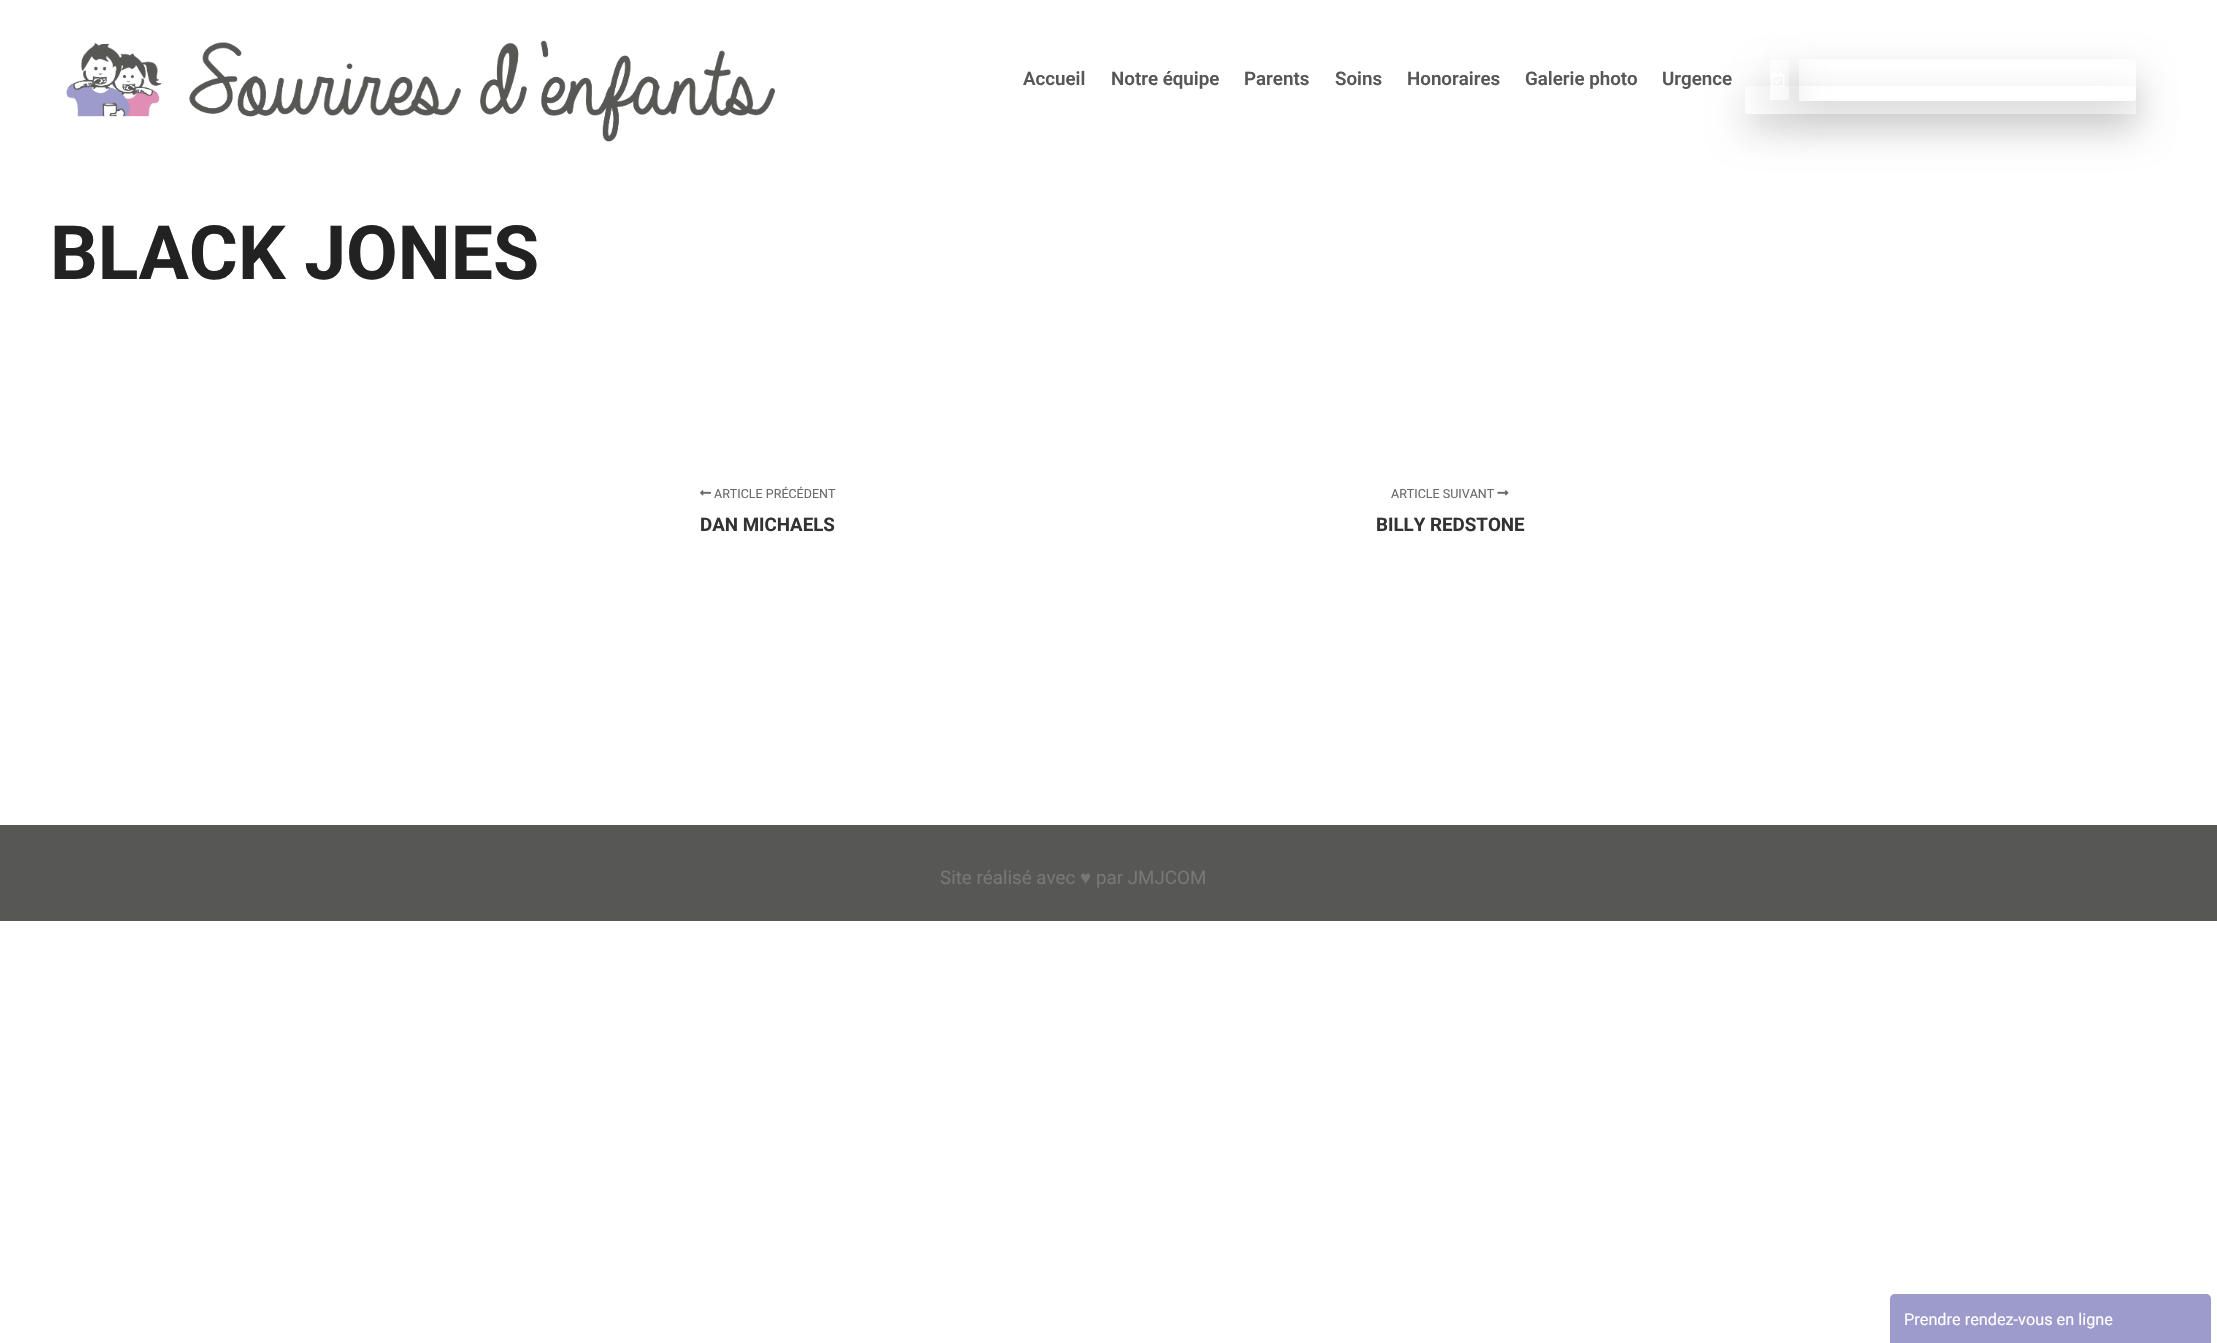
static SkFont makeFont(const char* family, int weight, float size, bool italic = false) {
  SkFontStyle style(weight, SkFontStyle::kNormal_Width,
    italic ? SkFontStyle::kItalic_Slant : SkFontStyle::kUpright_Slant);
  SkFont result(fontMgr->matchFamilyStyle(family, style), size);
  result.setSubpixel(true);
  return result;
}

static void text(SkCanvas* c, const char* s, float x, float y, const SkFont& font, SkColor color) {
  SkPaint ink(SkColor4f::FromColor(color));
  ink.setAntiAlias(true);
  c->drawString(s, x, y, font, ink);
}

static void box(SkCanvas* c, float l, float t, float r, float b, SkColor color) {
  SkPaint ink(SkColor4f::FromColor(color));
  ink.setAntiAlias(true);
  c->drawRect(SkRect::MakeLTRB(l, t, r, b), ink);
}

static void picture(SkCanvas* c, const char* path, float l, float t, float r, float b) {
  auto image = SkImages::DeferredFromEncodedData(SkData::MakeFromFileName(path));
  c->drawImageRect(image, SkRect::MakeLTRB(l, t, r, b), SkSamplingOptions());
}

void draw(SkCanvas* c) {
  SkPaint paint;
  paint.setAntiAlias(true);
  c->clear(0xffffffff);
  picture(c, "img_01.png", 66, 40, 775, 142);
  SkFont face1 = makeFont("Roboto", 600, 18.75f);
  text(c, "Accueil", 1023, 85, face1, 0xff575756);
  text(c, "Notre équipe", 1111, 85, face1, 0xff575756);
  text(c, "Parents", 1244, 85, face1, 0xff575756);
  text(c, "Soins", 1335, 85, face1, 0xff575756);
  text(c, "Honoraires", 1407, 85, face1, 0xff575756);
  text(c, "Galerie photo", 1525, 85, face1, 0xff575756);
  c->save();
  c->clipPath(SkPathBuilder(SkPathFillType::kEvenOdd).moveTo(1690, 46).lineTo(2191, 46).lineTo(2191, 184).lineTo(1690, 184).close().moveTo(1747.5f, 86).lineTo(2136, 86).lineTo(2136, 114).lineTo(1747.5f, 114).cubicTo(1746, 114, 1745, 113, 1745, 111.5f).lineTo(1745, 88.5f).cubicTo(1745, 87, 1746, 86, 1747.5f, 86).close().detach(), true);
  paint.setColor(0x29000000);
  paint.setMaskFilter(SkMaskFilter::MakeBlur(kNormal_SkBlurStyle, 18));
  c->drawRoundRect(SkRect::MakeLTRB(1745, 101, 2136, 129), 2.5f, 2.5f, paint);
  paint.setMaskFilter(nullptr);
  c->restore();
  c->save();
  c->clipPath(SkPathBuilder(SkPathFillType::kEvenOdd).moveTo(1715, 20).lineTo(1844, 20).lineTo(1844, 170).lineTo(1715, 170).close().moveTo(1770, 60).lineTo(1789, 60).lineTo(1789, 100).lineTo(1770, 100).close().detach(), true);
  paint.setMaskFilter(SkMaskFilter::MakeBlur(kNormal_SkBlurStyle, 18));
  c->drawRect(SkRect::MakeLTRB(1770, 75, 1789, 115), paint);
  paint.setMaskFilter(nullptr);
  c->restore();
  c->save();
  c->clipPath(SkPathBuilder(SkPathFillType::kEvenOdd).moveTo(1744, 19).lineTo(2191, 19).lineTo(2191, 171).lineTo(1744, 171).close().moveTo(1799, 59).lineTo(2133.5f, 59).cubicTo(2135, 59, 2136, 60, 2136, 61.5f).lineTo(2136, 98.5f).cubicTo(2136, 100, 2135, 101, 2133.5f, 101).lineTo(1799, 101).close().detach(), true);
  paint.setMaskFilter(SkMaskFilter::MakeBlur(kNormal_SkBlurStyle, 18));
  c->drawRoundRect(SkRect::MakeLTRB(1799, 74, 2136, 116), 2.5f, 2.5f, paint);
  paint.setMaskFilter(nullptr);
  c->restore();
  picture(c, "img_02.png", 1771, 72, 1785, 87);
  text(c, "Urgence", 1662, 85, face1, 0xff575756);
  SkFont face2 = makeFont("Roboto", 700, 75);
  text(c, "BLACK JONES", 50, 279, face2, 0xff222222);
  picture(c, "img_03.png", 700, 490, 711, 496);
  SkFont face3 = makeFont("Roboto", 400, 12.5f);
  text(c, "ARTICLE PRÉCÉDENT", 714, 498, face3, 0xff6a6a6a);
  SkFont face4 = makeFont("Roboto", 700, 18.75f);
  text(c, "DAN MICHAELS", 700, 531, face4, 0xff333333);
  text(c, "ARTICLE SUIVANT", 1391, 498, face3, 0xff6a6a6a);
  picture(c, "img_04.png", 1497, 490, 1509, 496);
  text(c, "BILLY REDSTONE", 1376, 531, face4, 0xff333333);
  box(c, 0, 825, 2217, 921, 0xff575756);
  SkFont face5 = makeFont("Roboto", 400, 18.75f);
  text(c, "Site réalisé avec", 940, 884, face5, 0xff777777);
  SkFont face6 = makeFont("Liberation Sans", 400, 18.75f);
  text(c, "♥", 1080, 884, face6, 0xff777777);
  text(c, "par JMJCOM", 1096, 884, face5, 0xff777777);
  paint.setColor(0xff9d9acc);
  c->drawPath(SkPathBuilder().moveTo(1895, 1294).lineTo(2206, 1294).cubicTo(2209, 1294, 2211, 1296, 2211, 1299).lineTo(2211, 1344).lineTo(1890, 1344).lineTo(1890, 1299).cubicTo(1890, 1296, 1892, 1294, 1895, 1294).close().detach(), paint);
  SkFont face7 = makeFont("Roboto", 400, 16.25f);
  text(c, "Prendre rendez-vous en ligne", 1904, 1325, face7, 0xffffffff);
}
